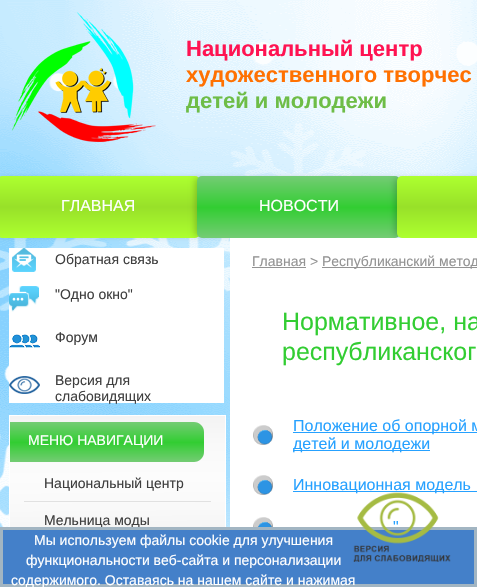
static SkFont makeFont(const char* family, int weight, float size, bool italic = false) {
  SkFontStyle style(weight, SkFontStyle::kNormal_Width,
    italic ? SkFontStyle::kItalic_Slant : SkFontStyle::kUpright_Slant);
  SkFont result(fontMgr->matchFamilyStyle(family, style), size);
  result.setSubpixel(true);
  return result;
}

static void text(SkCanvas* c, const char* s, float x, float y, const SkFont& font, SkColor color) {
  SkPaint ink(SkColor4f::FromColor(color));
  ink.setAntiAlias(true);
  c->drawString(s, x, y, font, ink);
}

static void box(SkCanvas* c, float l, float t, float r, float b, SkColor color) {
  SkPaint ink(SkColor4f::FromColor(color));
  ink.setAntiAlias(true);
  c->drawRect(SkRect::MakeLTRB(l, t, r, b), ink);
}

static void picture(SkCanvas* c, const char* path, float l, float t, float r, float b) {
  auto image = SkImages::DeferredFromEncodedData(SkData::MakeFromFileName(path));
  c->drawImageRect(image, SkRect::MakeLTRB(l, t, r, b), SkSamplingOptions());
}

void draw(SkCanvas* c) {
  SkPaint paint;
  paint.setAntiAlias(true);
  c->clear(0xffffffff);
  picture(c, "img_01.png", 0, 0, 477, 527);
  picture(c, "img_02.png", 12, 12, 156, 142);
  SkFont face1 = makeFont("Liberation Sans", 700, 22);
  text(c, "Национальный центр", 186, 56, face1, 0xffff1352);
  text(c, "художественного творчес", 186, 82, face1, 0xffff7101);
  text(c, "детей и молодежи", 186, 108, face1, 0xff6ebd47);
  paint.setColor(0x33000000);
  paint.setMaskFilter(SkMaskFilter::MakeBlur(kNormal_SkBlurStyle, 3));
  c->drawRoundRect(SkRect::MakeLTRB(-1, 178, 198, 236), 3, 3, paint);
  paint.setMaskFilter(nullptr);
  {
    const SkColor colors[] = {0xffadff2f, 0xff98e129, 0xffadff2f};
    const float stops[] = {0, 0.5f, 1};
    const SkPoint ends[] = {{99, 176}, {99, 238}};
    paint.setShader(SkGradientShader::MakeLinear(ends, colors, stops, 3, SkTileMode::kClamp));
    paint.setAlpha(255);
  }
  c->drawRoundRect(SkRect::MakeLTRB(-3, 176, 200, 238), 5, 5, paint);
  SkFont face2 = makeFont("Liberation Sans", 400, 16);
  text(c, "ГЛАВНАЯ", 61, 211, face2, 0xffffffff);
  paint.setShader(nullptr);
  paint.setColor(0x33000000);
  paint.setMaskFilter(SkMaskFilter::MakeBlur(kNormal_SkBlurStyle, 3));
  c->drawRoundRect(SkRect::MakeLTRB(195, 178, 394, 236), 3, 3, paint);
  paint.setMaskFilter(nullptr);
  {
    const SkColor colors[] = {0xff74cc74, 0xff32cd32, 0xff74cc74};
    const float stops[] = {0, 0.51f, 1};
    const SkPoint ends[] = {{299, 176}, {299, 238}};
    paint.setShader(SkGradientShader::MakeLinear(ends, colors, stops, 3, SkTileMode::kClamp));
    paint.setAlpha(255);
  }
  c->drawRoundRect(SkRect::MakeLTRB(197, 176, 400, 238), 5, 5, paint);
  text(c, "НОВОСТИ", 259, 211, face2, 0xffffffff);
  paint.setShader(nullptr);
  paint.setColor(0x33000000);
  paint.setMaskFilter(SkMaskFilter::MakeBlur(kNormal_SkBlurStyle, 3));
  c->drawRoundRect(SkRect::MakeLTRB(395, 178, 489, 236), 3, 3, paint);
  paint.setMaskFilter(nullptr);
  {
    const SkColor colors[] = {0xffadff2f, 0xff98e129, 0xffadff2f};
    const float stops[] = {0, 0.5f, 1};
    const SkPoint ends[] = {{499, 176}, {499, 238}};
    paint.setShader(SkGradientShader::MakeLinear(ends, colors, stops, 3, SkTileMode::kClamp));
    paint.setAlpha(255);
  }
  c->drawRoundRect(SkRect::MakeLTRB(397, 176, 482, 238), 5, 5, paint);
  box(c, 9, 248, 224, 403, 0xffffffff);
  picture(c, "img_03.png", 12, 248, 36, 272);
  SkFont face3 = makeFont("Liberation Sans", 400, 14);
  text(c, "Обратная связь", 55, 264, face3, 0xff3f3f3f);
  picture(c, "img_04.png", 9, 286, 39, 312);
  text(c, "\"Одно окно\"", 55, 299, face3, 0xff3f3f3f);
  picture(c, "img_05.png", 9, 334, 40, 348);
  text(c, "Форум", 55, 342, face3, 0xff3f3f3f);
  picture(c, "img_06.png", 9, 376, 40, 394);
  text(c, "Версия для", 55, 385, face3, 0xff3f3f3f);
  text(c, "слабовидящих", 55, 401, face3, 0xff3f3f3f);
  {
    const SkColor colors[] = {0xfff3f3f3, 0xfff9f9f9, 0xfffcfcfc, 0xfff9f9f9, 0xfff3f3f3};
    const float stops[] = {0, 0.25f, 0.5f, 0.75f, 1};
    const SkPoint ends[] = {{117, 416}, {118, 539}};
    paint.setShader(SkGradientShader::MakeLinear(ends, colors, stops, 5, SkTileMode::kClamp));
    paint.setAlpha(255);
  }
  c->drawRect(SkRect::MakeLTRB(10, 416, 225, 527), paint);
  paint.setStyle(SkPaint::kStroke_Style);
  paint.setStrokeWidth(1);
  paint.setShader(nullptr);
  paint.setColor(0xffffffff);
  c->drawRect(SkRect::MakeLTRB(9.5f, 415.5f, 225.5f, 539.5f), paint);
  paint.setStyle(SkPaint::kFill_Style);
  {
    const SkColor colors[] = {0xff74cc74, 0xff32cd32, 0xff74cc74};
    const float stops[] = {0, 0.51f, 1};
    const SkPoint ends[] = {{107, 422}, {107, 462}};
    paint.setShader(SkGradientShader::MakeLinear(ends, colors, stops, 3, SkTileMode::kClamp));
    paint.setAlpha(255);
  }
  c->drawPath(SkPathBuilder().moveTo(10, 422).lineTo(194, 422).cubicTo(199.5f, 422, 204, 426.5f, 204, 432).lineTo(204, 452).cubicTo(204, 457.5f, 199.5f, 462, 194, 462).lineTo(10, 462).close().detach(), paint);
  text(c, "МЕНЮ НАВИГАЦИИ", 28, 445, face3, 0xffffffff);
  box(c, 24, 501, 211, 502, 0xffe1e1e1);
  text(c, "Национальный центр", 44, 488, face3, 0xff3f3f3f);
  text(c, "Мельница моды", 44, 525, face3, 0xff3f3f3f);
  box(c, 230, 238, 477, 527, 0xffffffff);
  text(c, "Главная >", 252, 266, face3, 0xff939393);
  box(c, 252, 267, 306, 268, 0xff939393);
  box(c, 322, 267, 477, 268, 0xff939393);
  text(c, "Республиканский метод", 322, 266, face3, 0xff939393);
  SkFont face4 = makeFont("Liberation Sans", 400, 25);
  text(c, "Нормативное, на", 282, 330, face4, 0xff32cd32);
  text(c, "республиканског", 282, 360, face4, 0xff32cd32);
  picture(c, "img_07.png", 253, 425, 273, 445);
  box(c, 293, 432, 477, 433, 0xff26a1ff);
  text(c, "Положение об опорной м", 293, 431, face2, 0xff26a1ff);
  box(c, 293, 450, 430, 451, 0xff26a1ff);
  text(c, "детей и молодежи", 293, 449, face2, 0xff26a1ff);
  picture(c, "img_07.png", 253, 475, 273, 495);
  box(c, 293, 491, 477, 492, 0xff26a1ff);
  text(c, "Инновационная модель", 293, 490, face2, 0xff26a1ff);
  picture(c, "img_08.png", 253, 517, 273, 527);
  text(c, "\"", 393, 532, face2, 0xff26a1ff);
  paint.setShader(nullptr);
  paint.setColor(0xff4480c9);
  c->drawRect(SkRect::MakeLTRB(1.5f, 528.5f, 475.5f, 585.5f), paint);
  paint.setStyle(SkPaint::kStroke_Style);
  paint.setStrokeWidth(3);
  paint.setColor(0xffa2b5c2);
  c->drawRect(SkRect::MakeLTRB(1.5f, 528.5f, 475.5f, 585.5f), paint);
  text(c, "Мы используем файлы cookie для улучшения", 34, 545, face3, 0xffffffff);
  text(c, "функциональности веб-сайта и персонализации", 26, 565, face3, 0xffffffff);
  text(c, "содержимого. Оставаясь на нашем сайте и нажимая", 11, 585, face3, 0xffffffff);
  picture(c, "img_09.png", 353, 492, 451, 562);
}
